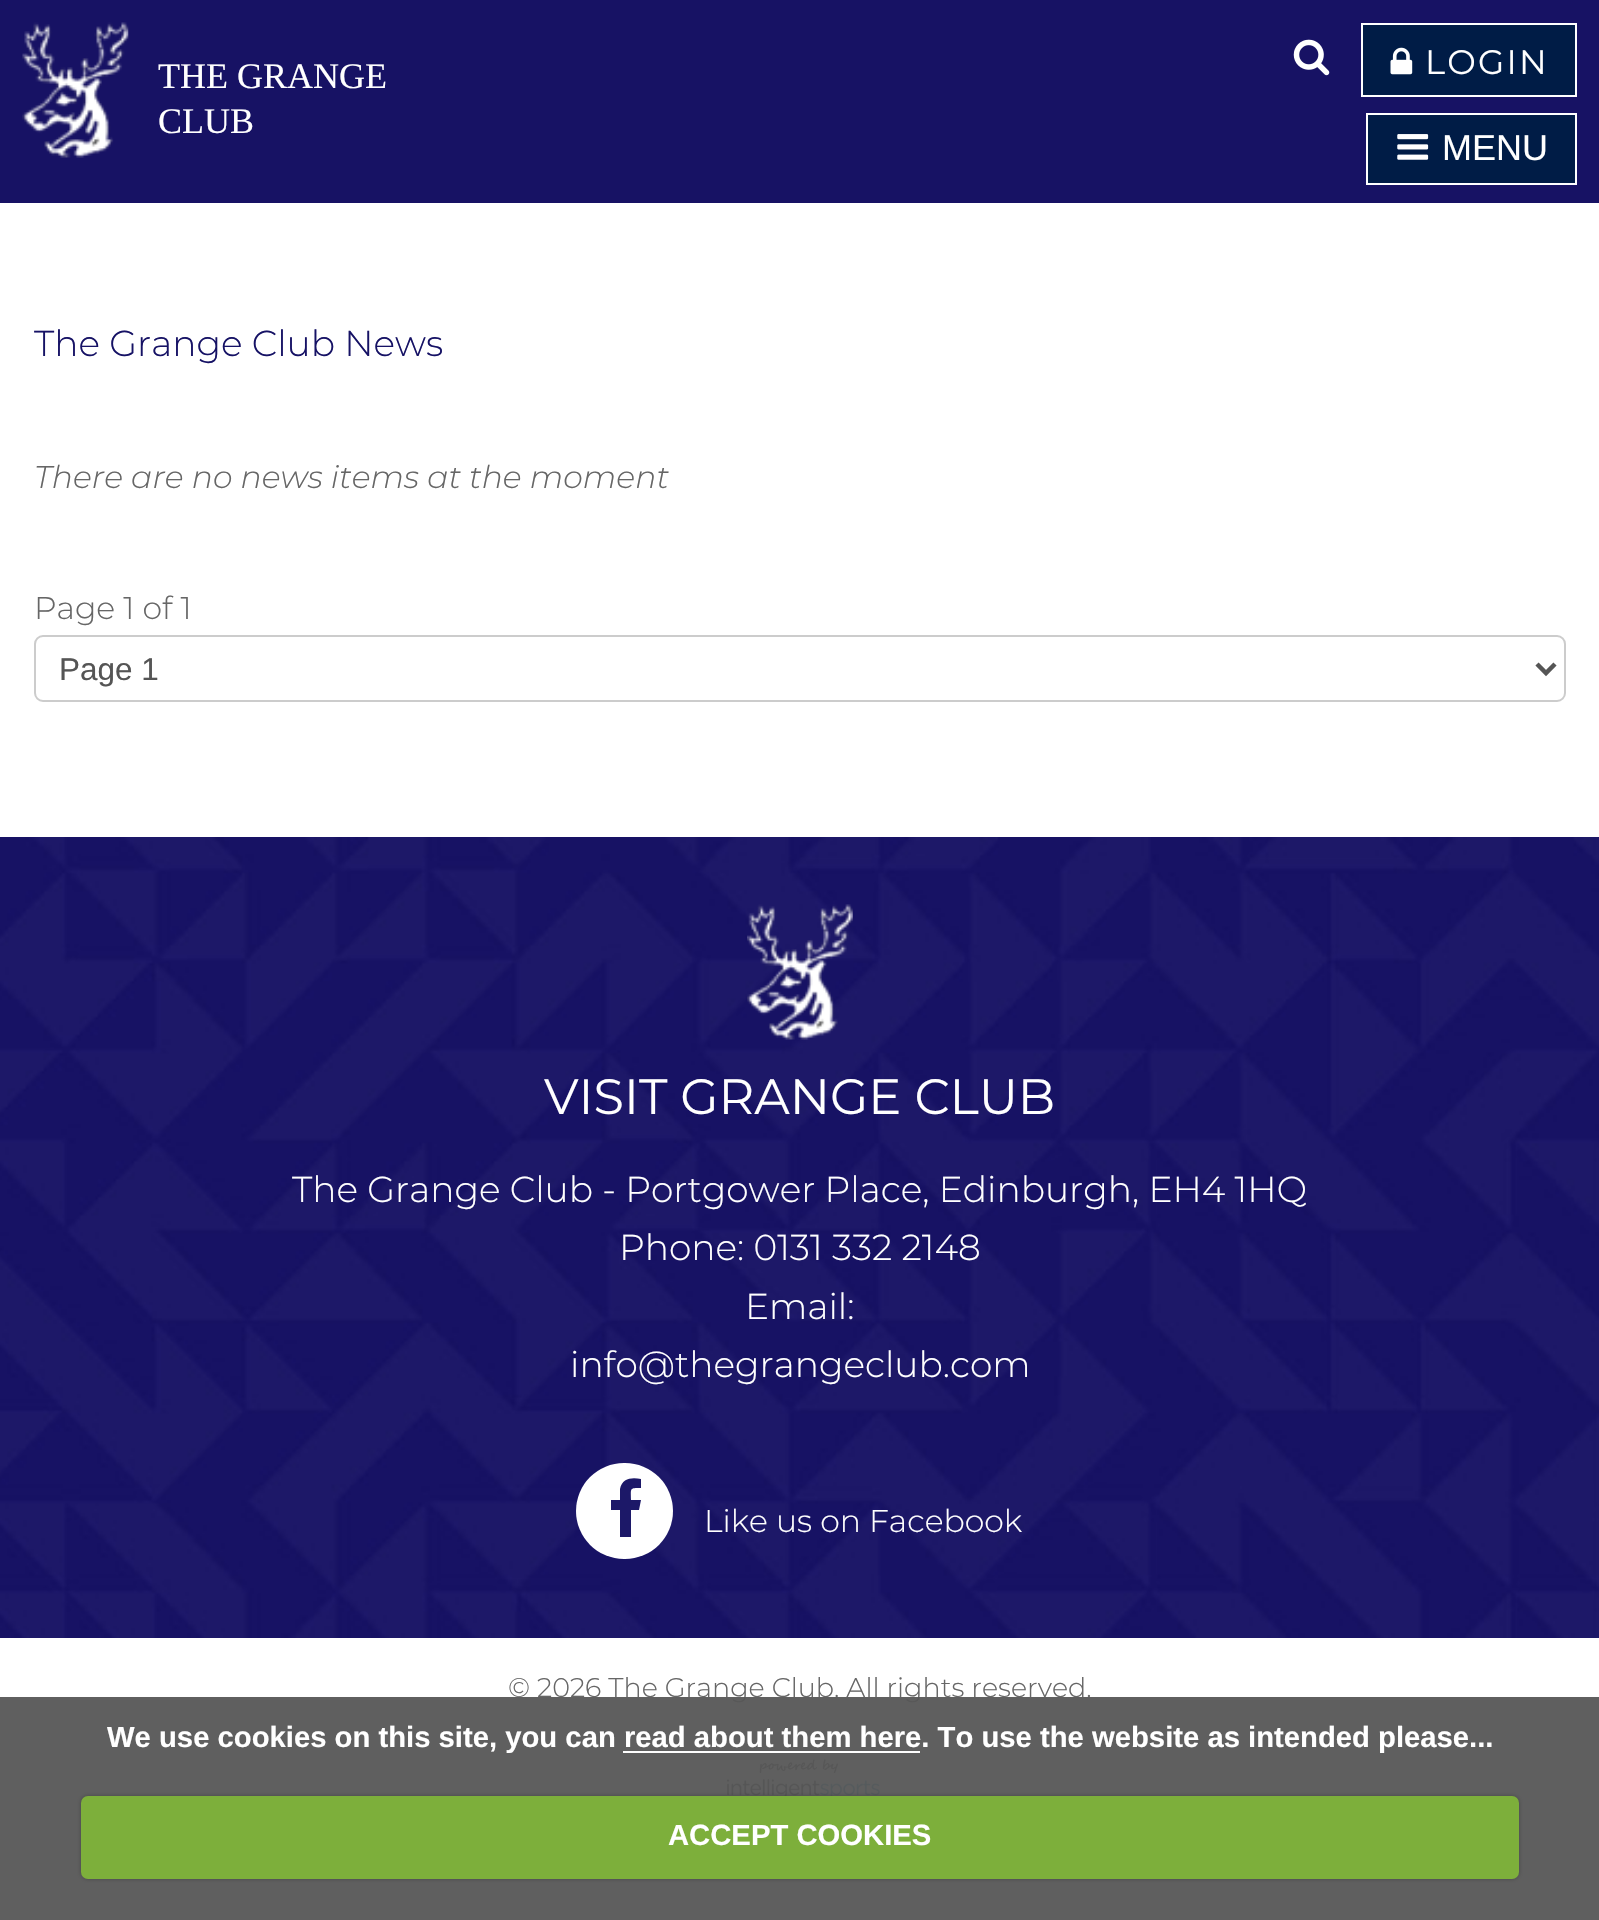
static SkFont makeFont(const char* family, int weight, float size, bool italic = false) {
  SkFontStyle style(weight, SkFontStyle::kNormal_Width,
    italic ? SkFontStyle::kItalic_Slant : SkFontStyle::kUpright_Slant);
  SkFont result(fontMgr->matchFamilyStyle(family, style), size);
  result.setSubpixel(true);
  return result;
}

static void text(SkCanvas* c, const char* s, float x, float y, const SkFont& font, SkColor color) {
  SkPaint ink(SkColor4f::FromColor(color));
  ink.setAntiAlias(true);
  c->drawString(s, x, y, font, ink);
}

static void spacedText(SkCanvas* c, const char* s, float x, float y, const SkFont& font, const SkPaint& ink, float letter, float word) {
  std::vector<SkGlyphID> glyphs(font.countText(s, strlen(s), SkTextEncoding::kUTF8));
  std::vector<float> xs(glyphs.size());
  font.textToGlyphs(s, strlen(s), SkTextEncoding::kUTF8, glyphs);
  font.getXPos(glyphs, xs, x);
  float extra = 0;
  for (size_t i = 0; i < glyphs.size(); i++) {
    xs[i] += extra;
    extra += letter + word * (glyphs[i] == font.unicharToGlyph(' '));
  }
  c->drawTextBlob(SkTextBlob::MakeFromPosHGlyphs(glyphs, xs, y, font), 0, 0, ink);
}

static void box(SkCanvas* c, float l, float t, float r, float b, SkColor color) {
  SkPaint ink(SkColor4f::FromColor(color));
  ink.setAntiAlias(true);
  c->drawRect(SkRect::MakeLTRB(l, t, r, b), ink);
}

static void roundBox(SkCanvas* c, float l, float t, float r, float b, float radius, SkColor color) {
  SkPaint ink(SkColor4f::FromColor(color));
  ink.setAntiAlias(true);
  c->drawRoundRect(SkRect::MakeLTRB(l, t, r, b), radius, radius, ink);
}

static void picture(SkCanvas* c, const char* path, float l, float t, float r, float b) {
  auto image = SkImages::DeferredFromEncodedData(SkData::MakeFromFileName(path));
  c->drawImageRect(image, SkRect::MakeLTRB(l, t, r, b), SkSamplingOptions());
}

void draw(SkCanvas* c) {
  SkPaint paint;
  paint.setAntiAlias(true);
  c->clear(0xffffffff);
  box(c, 0, 0, 1599, 203, 0xff171264);
  picture(c, "img_01.png", 22, 22, 129, 158);
  SkFont face1 = makeFont("Liberation Serif", 400, 36);
  text(c, "THE GRANGE", 158, 88, face1, 0xffffffff);
  text(c, "CLUB", 158, 133, face1, 0xffffffff);
  picture(c, "img_02.png", 1293, 39, 1330, 76);
  paint.setColor(0xff001c46);
  c->drawRect(SkRect::MakeLTRB(1362, 24, 1576, 96), paint);
  paint.setStyle(SkPaint::kStroke_Style);
  paint.setStrokeWidth(2);
  paint.setColor(0xffffffff);
  c->drawRect(SkRect::MakeLTRB(1362, 24, 1576, 96), paint);
  picture(c, "img_03.png", 1390, 47, 1413, 75);
  SkFont face2 = makeFont("Montserrat", 400, 34);
  paint.setStyle(SkPaint::kFill_Style);
  spacedText(c, "LOGIN", 1425, 74, face2, paint, 2.25f, 0);
  paint.setColor(0xff001c46);
  c->drawRect(SkRect::MakeLTRB(1367, 114, 1576, 184), paint);
  paint.setStyle(SkPaint::kStroke_Style);
  paint.setColor(0xffffffff);
  c->drawRect(SkRect::MakeLTRB(1367, 114, 1576, 184), paint);
  picture(c, "img_04.png", 1397, 134, 1429, 160);
  SkFont face3 = makeFont("Liberation Sans", 400, 36);
  text(c, "MENU", 1442, 160, face3, 0xffffffff);
  SkFont face4 = makeFont("Montserrat", 300, 36);
  text(c, "The Grange Club News", 34, 356, face4, 0xff161265);
  SkFont face5 = makeFont("Montserrat", 300, 31.5f, true);
  text(c, "There are no news items at the moment", 34, 488, face5, 0xff666666);
  SkFont face6 = makeFont("Montserrat", 300, 31.5f);
  text(c, "Page 1 of 1", 34, 619, face6, 0xff666666);
  paint.setColor(0xffcccccc);
  c->drawRoundRect(SkRect::MakeLTRB(35, 636, 1565, 701), 8, 8, paint);
  paint.setStrokeWidth(4.5f);
  paint.setColor(0xff555555);
  c->drawPath(SkPathBuilder().moveTo(1537, 664).lineTo(1546, 673).lineTo(1555, 664).detach(), paint);
  SkFont face7 = makeFont("Liberation Sans", 400, 31.5f);
  text(c, "Page 1", 59, 680, face7, 0xff555555);
  picture(c, "img_05.png", 0, 837, 1599, 1638);
  picture(c, "img_06.png", 747, 904, 853, 1040);
  SkFont face8 = makeFont("Montserrat", 400, 49.5f);
  text(c, "VISIT GRANGE CLUB", 544, 1114, face8, 0xffffffff);
  text(c, "The Grange Club - Portgower Place, Edinburgh, EH4 1HQ", 292, 1202, face4, 0xffffffff);
  text(c, "Phone: 0131 332 2148", 619, 1260, face4, 0xffffffff);
  text(c, "Email:", 745, 1319, face4, 0xffffffff);
  text(c, "info@thegrangeclub.com", 570, 1377, face4, 0xffffffff);
  roundBox(c, 576, 1463, 673, 1559, 48, 0xffffffff);
  paint.setStyle(SkPaint::kFill_Style);
  paint.setColor(0xff1c1868);
  c->drawPath(SkPathBuilder().moveTo(641, 1479).lineTo(641, 1488).cubicTo(629, 1488, 631, 1488, 631, 1500).lineTo(641, 1500).lineTo(639, 1510).lineTo(631, 1510).lineTo(631, 1537).lineTo(620, 1537).lineTo(620, 1510).lineTo(611, 1510).lineTo(611, 1500).lineTo(620, 1500).lineTo(620, 1489).cubicTo(622, 1478, 632, 1477, 641, 1479).close().detach(), paint);
  text(c, "Like us on Facebook", 704, 1532, face6, 0xffffffff);
  SkFont face9 = makeFont("Montserrat", 300, 27);
  text(c, "© 2026 The Grange Club. All rights reserved.", 508, 1697, face9, 0xff666666);
  picture(c, "img_07.png", 726, 1759, 880, 1796);
  box(c, 0, 1697, 1599, 1920, 0xf2565656);
  SkFont face10 = makeFont("Liberation Sans", 700, 29.25f);
  text(c, "We use cookies on this site, you can read about them here. To use the website as intended please...", 107, 1747, face10, 0xffffffff);
  box(c, 623, 1751, 920, 1753, 0xffffffff);
  paint.setColor(0x40000000);
  paint.setMaskFilter(SkMaskFilter::MakeBlur(kNormal_SkBlurStyle, 2));
  c->drawRoundRect(SkRect::MakeLTRB(81, 1796, 1519, 1879), 7, 7, paint);
  paint.setMaskFilter(nullptr);
  roundBox(c, 81, 1796, 1519, 1879, 7, 0xff7daf3b);
  text(c, "ACCEPT COOKIES", 668, 1845, face10, 0xffffffff);
}
